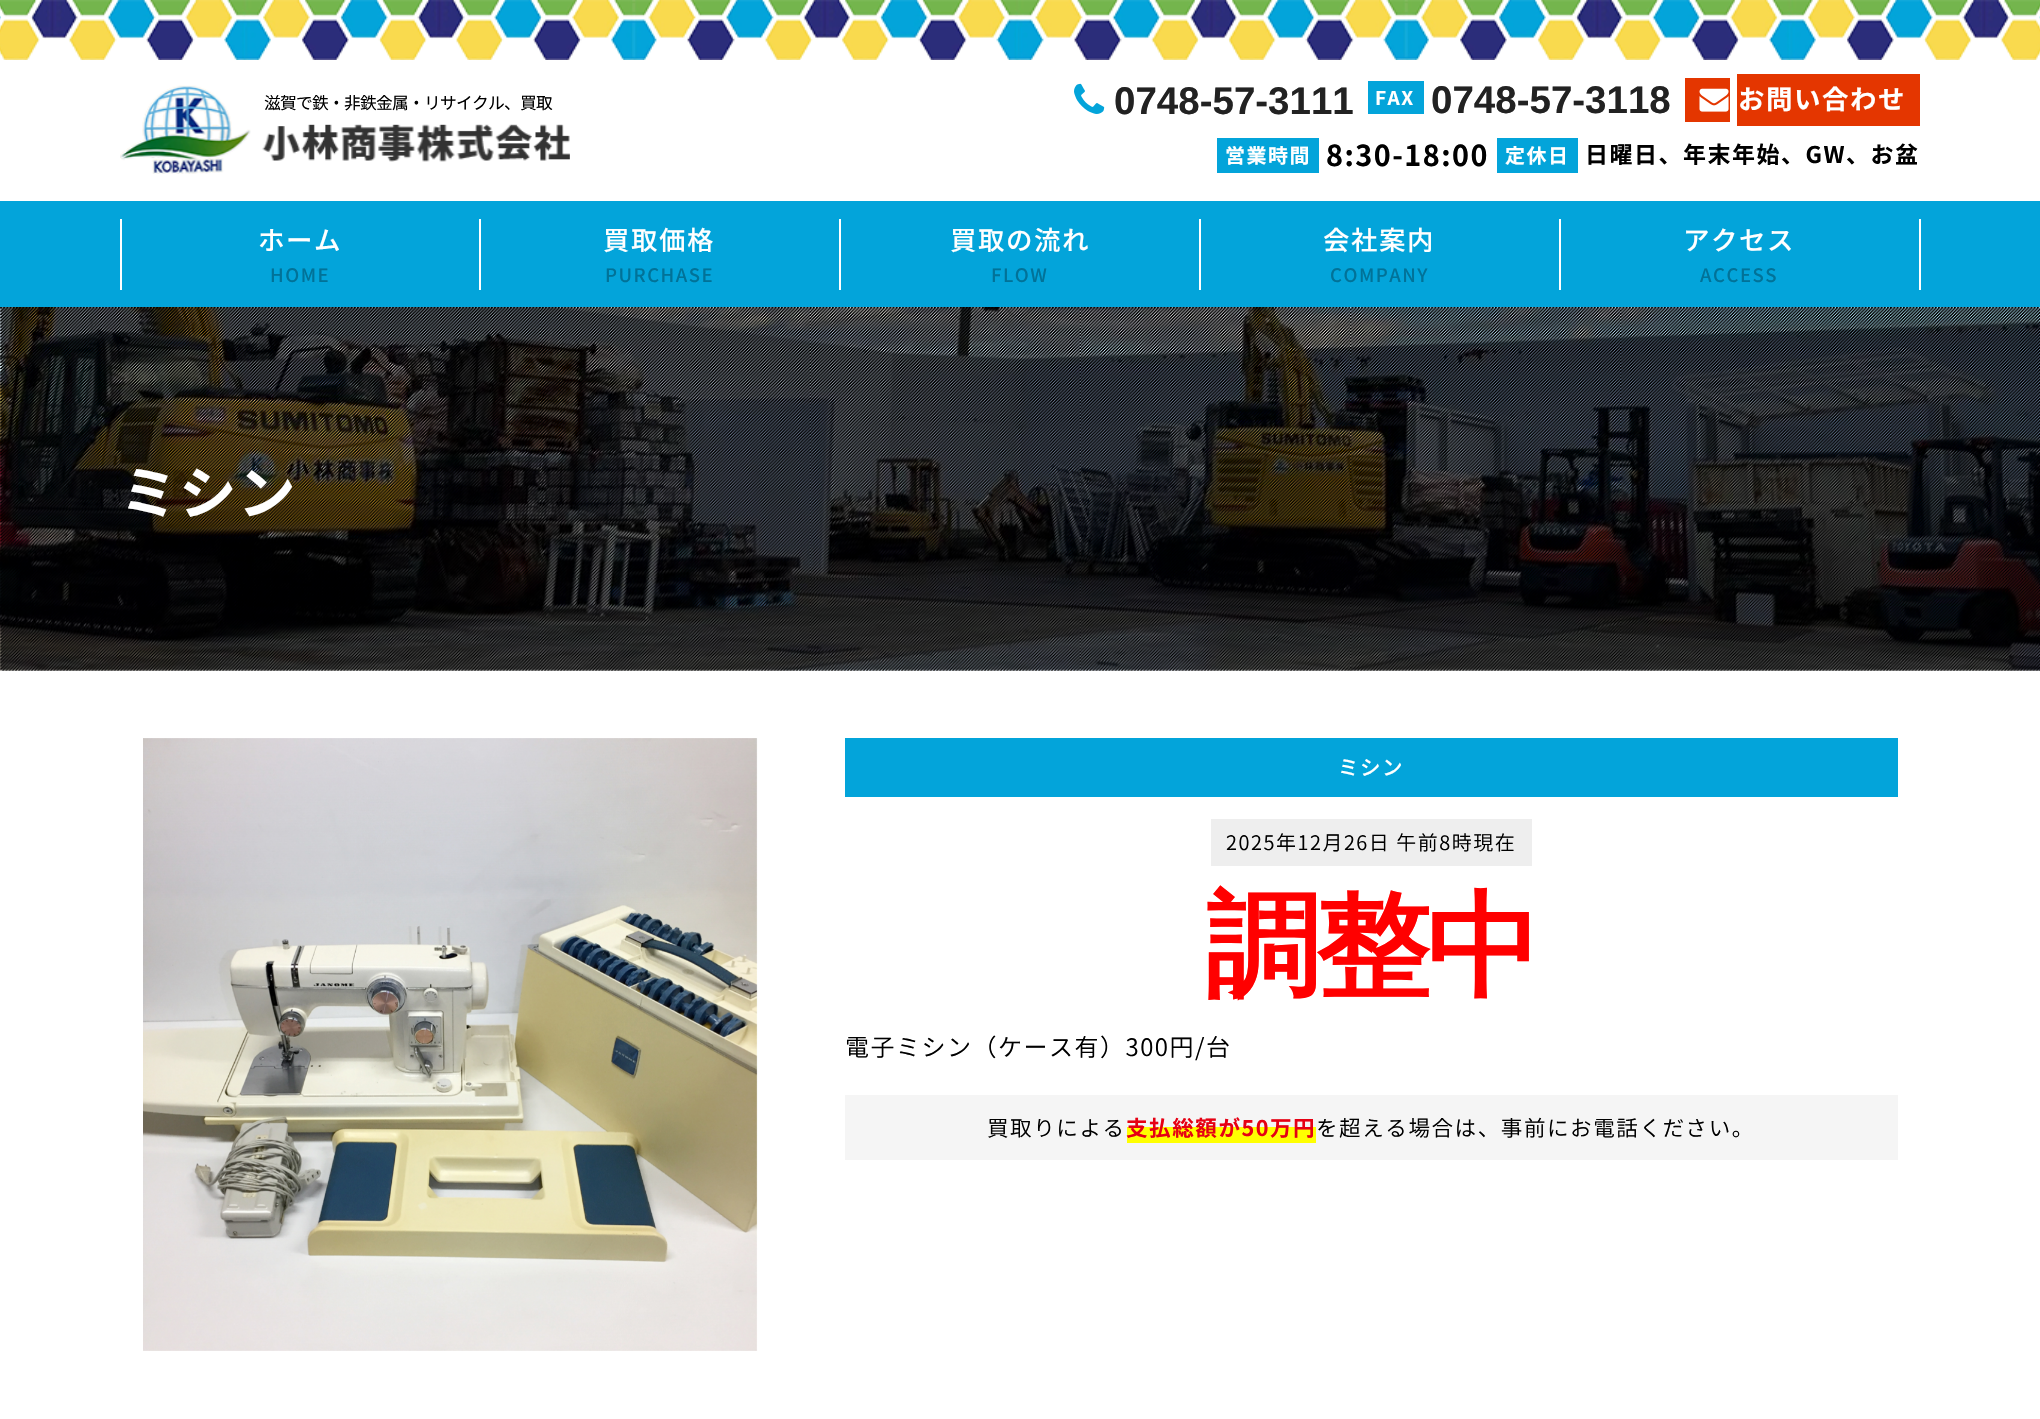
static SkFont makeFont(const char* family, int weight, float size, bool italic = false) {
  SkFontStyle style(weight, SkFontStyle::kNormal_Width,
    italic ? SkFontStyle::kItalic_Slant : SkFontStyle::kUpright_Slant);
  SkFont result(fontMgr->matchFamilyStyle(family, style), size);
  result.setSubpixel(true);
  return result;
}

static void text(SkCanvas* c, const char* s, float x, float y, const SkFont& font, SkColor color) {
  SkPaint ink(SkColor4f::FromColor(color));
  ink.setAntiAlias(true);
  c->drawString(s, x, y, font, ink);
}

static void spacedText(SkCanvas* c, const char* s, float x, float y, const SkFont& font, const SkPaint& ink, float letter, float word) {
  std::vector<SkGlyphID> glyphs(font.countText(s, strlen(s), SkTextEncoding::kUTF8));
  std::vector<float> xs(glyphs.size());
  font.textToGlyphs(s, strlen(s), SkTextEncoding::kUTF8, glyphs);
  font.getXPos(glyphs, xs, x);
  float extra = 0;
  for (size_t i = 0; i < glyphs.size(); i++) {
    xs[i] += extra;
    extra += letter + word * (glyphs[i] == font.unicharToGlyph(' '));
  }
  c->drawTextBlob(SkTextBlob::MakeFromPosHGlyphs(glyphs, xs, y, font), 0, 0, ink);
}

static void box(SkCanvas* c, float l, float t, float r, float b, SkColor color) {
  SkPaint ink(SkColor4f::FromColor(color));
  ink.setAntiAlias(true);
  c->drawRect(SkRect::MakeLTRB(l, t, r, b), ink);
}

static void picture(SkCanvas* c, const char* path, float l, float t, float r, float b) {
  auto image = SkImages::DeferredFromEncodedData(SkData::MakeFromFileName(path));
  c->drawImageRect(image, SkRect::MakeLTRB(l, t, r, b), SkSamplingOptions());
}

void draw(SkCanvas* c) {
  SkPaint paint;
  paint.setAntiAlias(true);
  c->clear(0xffffffff);
  picture(c, "img_01.png", 0, 0, 2040, 60);
  picture(c, "img_02.png", 120, 85, 570, 174);
  picture(c, "img_03.png", 1074, 83, 1105, 114);
  SkFont face1 = makeFont("Liberation Sans", 700, 38.5f);
  text(c, "0748-57-3111", 1114, 114, face1, 0xff222222);
  box(c, 1368, 81, 1424, 114, 0xff03a4da);
  SkFont face2 = makeFont("Noto Sans JP", 700, 19);
  paint.setColor(0xffffffff);
  spacedText(c, "FAX", 1375, 105, face2, paint, 1.5f, 0);
  text(c, "0748-57-3118", 1431, 113, face1, 0xff222222);
  box(c, 1685, 78, 1730, 122, 0xffe43600);
  picture(c, "img_04.png", 1699, 88, 1729, 112);
  box(c, 1737, 74, 1920, 126, 0xffe43600);
  SkFont face3 = makeFont("Noto Sans JP", 700, 26.5f);
  spacedText(c, "お問い合わせ", 1738, 109, face3, paint, 1.5f, 0);
  box(c, 1217, 138, 1319, 173, 0xff03a4da);
  SkFont face4 = makeFont("Noto Sans JP", 700, 20);
  spacedText(c, "営業時間", 1225, 163, face4, paint, 1.5f, 0);
  SkFont face5 = makeFont("Noto Sans JP", 700, 28.75f);
  paint.setColor(0xff000000);
  spacedText(c, "8:30-18:00", 1326, 166, face5, paint, 1.5f, 0);
  box(c, 1497, 138, 1578, 173, 0xff03a4da);
  paint.setColor(0xffffffff);
  spacedText(c, "定休日", 1505, 163, face4, paint, 1.5f, 0);
  SkFont face6 = makeFont("Noto Sans JP", 700, 23);
  paint.setColor(0xff000000);
  spacedText(c, "日曜日、年末年始、GW、お盆", 1585, 163, face6, paint, 1.5f, 0);
  SkFont face7 = makeFont("Noto Sans JP", 400, 16.75f);
  spacedText(c, "滋賀で鉄・非鉄金属・リサイクル、買取", 264, 109, face7, paint, -0.75f, 0);
  box(c, 0, 201, 2040, 307, 0xff03a4da);
  box(c, 479, 219, 481, 290, 0xffffffff);
  box(c, 120, 219, 122, 290, 0xffffffff);
  SkFont face8 = makeFont("Noto Sans JP", 500, 26.5f);
  paint.setColor(0xffffffff);
  spacedText(c, "ホーム", 258, 250, face8, paint, 1.5f, 0);
  SkFont face9 = makeFont("Noto Sans JP", 500, 18.5f);
  paint.setColor(0xff017298);
  spacedText(c, "HOME", 270, 282, face9, paint, 1.5f, 0);
  box(c, 839, 219, 841, 290, 0xffffffff);
  paint.setColor(0xffffffff);
  spacedText(c, "買取価格", 603, 250, face8, paint, 1.5f, 0);
  paint.setColor(0xff017298);
  spacedText(c, "PURCHASE", 605, 282, face9, paint, 1.5f, 0);
  box(c, 1199, 219, 1201, 290, 0xffffffff);
  paint.setColor(0xffffffff);
  spacedText(c, "買取の流れ", 950, 250, face8, paint, 1.5f, 0);
  paint.setColor(0xff017298);
  spacedText(c, "FLOW", 991, 282, face9, paint, 1.5f, 0);
  box(c, 1559, 219, 1561, 290, 0xffffffff);
  paint.setColor(0xffffffff);
  spacedText(c, "会社案内", 1323, 250, face8, paint, 1.5f, 0);
  paint.setColor(0xff017298);
  spacedText(c, "COMPANY", 1330, 282, face9, paint, 1.5f, 0);
  box(c, 1919, 219, 1921, 290, 0xffffffff);
  paint.setColor(0xffffffff);
  spacedText(c, "アクセス", 1683, 250, face8, paint, 1.5f, 0);
  paint.setColor(0xff017298);
  spacedText(c, "ACCESS", 1700, 282, face9, paint, 1.5f, 0);
  picture(c, "img_05.png", 0, 307, 2040, 671);
  SkFont face10 = makeFont("Noto Sans JP", 700, 57.5f);
  paint.setColor(0xffffffff);
  spacedText(c, "ミシン", 120, 514, face10, paint, 1.5f, 0);
  picture(c, "img_06.png", 143, 738, 758, 1351);
  box(c, 845, 738, 1898, 797, 0xff03a4da);
  SkFont face11 = makeFont("Noto Sans JP", 500, 20.5f);
  spacedText(c, "ミシン", 1338, 775, face11, paint, 1.5f, 0);
  box(c, 1211, 819, 1532, 866, 0xffeeeeee);
  SkFont face12 = makeFont("Noto Sans JP", 300, 20);
  paint.setColor(0xff000000);
  spacedText(c, "2025年12月26日 午前8時現在", 1226, 850, face12, paint, 1.5f, 0);
  SkFont face13 = makeFont("WenQuanYi Zen Hei", 700, 115);
  paint.setColor(0xffff0000);
  spacedText(c, "調整中", 1205, 986, face13, paint, -4.5f, 0);
  SkFont face14 = makeFont("Noto Sans JP", 300, 24);
  paint.setColor(0xff000000);
  spacedText(c, "電子ミシン（ケース有）300円/台", 845, 1056, face14, paint, 1.5f, 0);
  box(c, 845, 1095, 1898, 1160, 0xfff5f5f5);
  SkFont face15 = makeFont("Noto Sans JP", 300, 21.6f);
  spacedText(c, "買取りによる", 987, 1136, face15, paint, 1.5f, 0);
  box(c, 1127, 1127, 1316, 1143, 0xffffff00);
  SkFont face16 = makeFont("Noto Sans JP", 700, 21.6f);
  paint.setColor(0xffe60013);
  spacedText(c, "支払総額が50万円", 1126, 1136, face16, paint, 1.5f, 0);
  paint.setColor(0xff000000);
  spacedText(c, "を超える場合は、事前にお電話ください。", 1316, 1136, face15, paint, 1.5f, 0);
}
